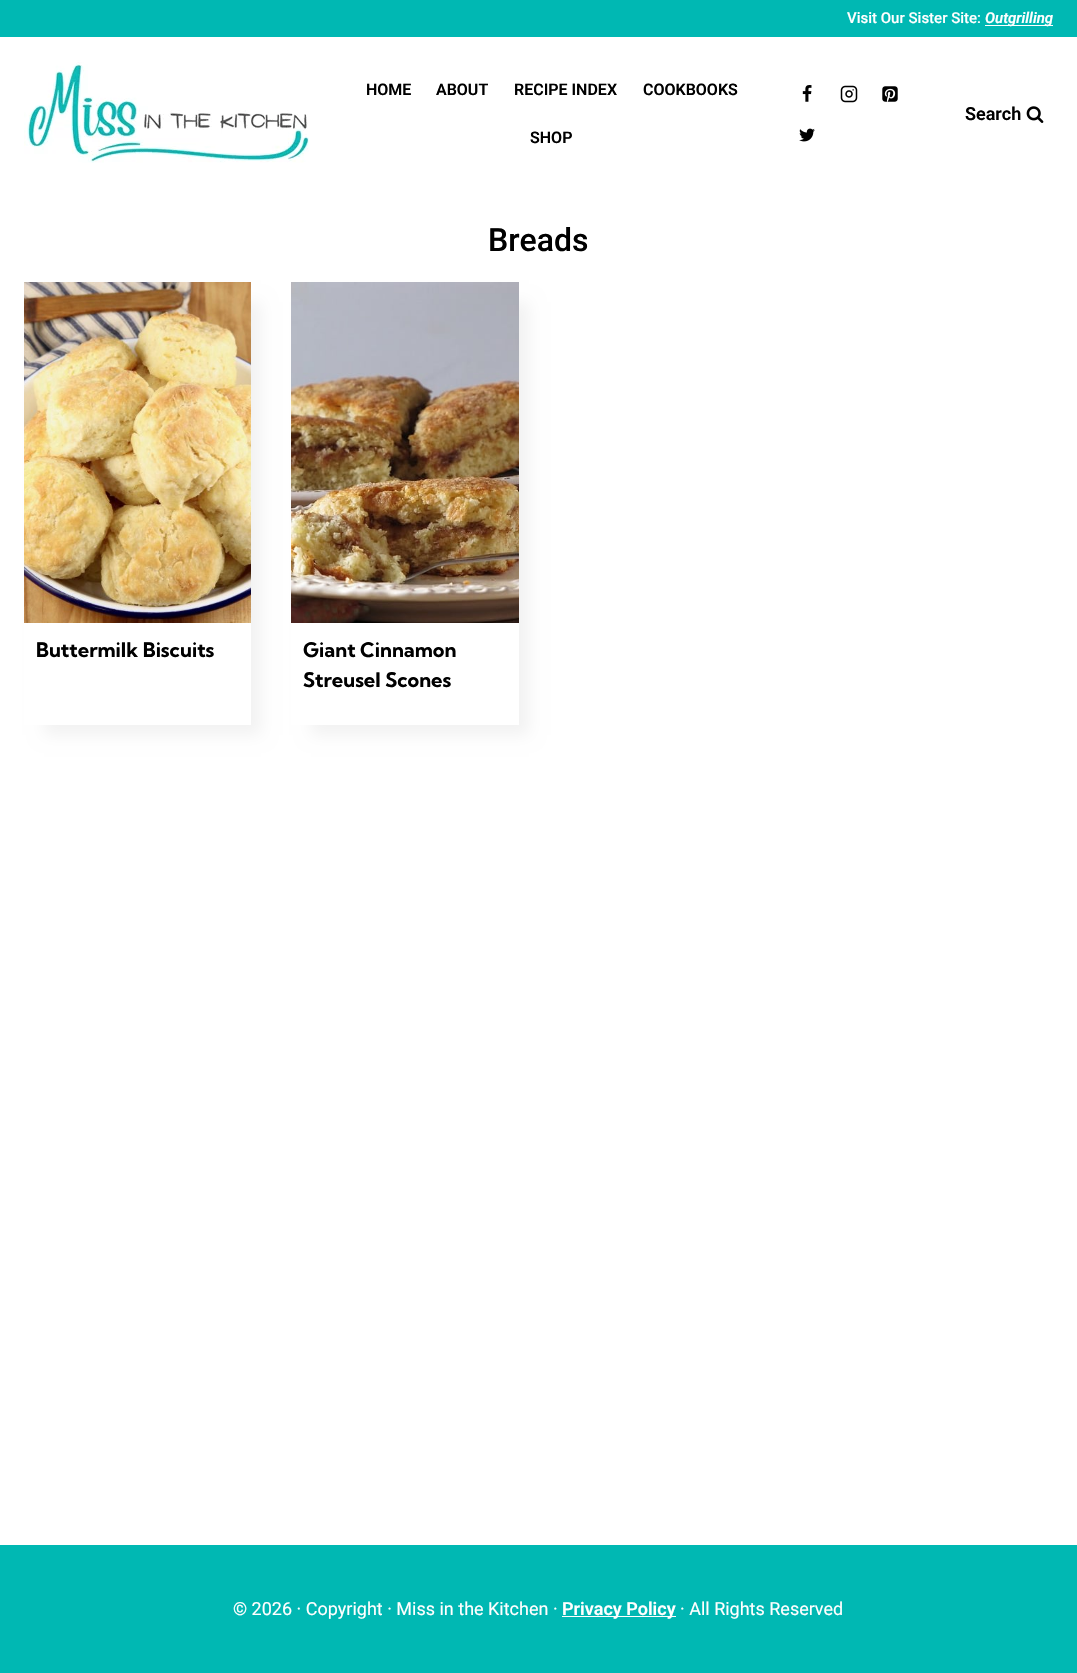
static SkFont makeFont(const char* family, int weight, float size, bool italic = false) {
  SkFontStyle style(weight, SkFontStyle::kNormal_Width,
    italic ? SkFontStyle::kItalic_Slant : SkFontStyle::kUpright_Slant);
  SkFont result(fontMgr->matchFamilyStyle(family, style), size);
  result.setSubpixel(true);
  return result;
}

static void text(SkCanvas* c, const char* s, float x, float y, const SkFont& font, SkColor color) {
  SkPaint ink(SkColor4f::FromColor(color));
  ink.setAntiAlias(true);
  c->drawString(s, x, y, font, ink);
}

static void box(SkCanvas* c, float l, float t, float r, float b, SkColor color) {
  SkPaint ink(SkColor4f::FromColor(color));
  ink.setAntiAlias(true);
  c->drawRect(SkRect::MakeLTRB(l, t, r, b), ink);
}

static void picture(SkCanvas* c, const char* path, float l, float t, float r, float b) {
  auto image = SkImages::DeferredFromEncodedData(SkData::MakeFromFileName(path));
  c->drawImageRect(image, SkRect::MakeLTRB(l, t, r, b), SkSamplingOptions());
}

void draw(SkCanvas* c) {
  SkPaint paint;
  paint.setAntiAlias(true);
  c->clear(0xffffffff);
  box(c, 0, 0, 1077, 37, 0xff00b8b3);
  SkFont face1 = makeFont("Roboto", 500, 15);
  text(c, "Visit Our Sister Site:", 847, 23, face1, 0xffffffff);
  box(c, 985, 25, 1053, 26, 0xffffffff);
  SkFont face2 = makeFont("Roboto", 600, 15, true);
  text(c, "Outgrilling", 985, 23, face2, 0xffffffff);
  picture(c, "img_01.png", 24, 60, 309, 163);
  SkFont face3 = makeFont("Roboto", 600, 16);
  text(c, "HOME", 366, 95, face3, 0xff000000);
  text(c, "ABOUT", 436, 95, face3, 0xff000000);
  text(c, "RECIPE INDEX", 514, 95, face3, 0xff000000);
  text(c, "COOKBOOKS", 643, 95, face3, 0xff000000);
  text(c, "SHOP", 530, 143, face3, 0xff000000);
  picture(c, "img_02.png", 802, 85, 812, 102);
  picture(c, "img_03.png", 840, 85, 858, 103);
  picture(c, "img_04.png", 882, 86, 898, 102);
  picture(c, "img_05.png", 799, 128, 815, 142);
  SkFont face4 = makeFont("Roboto", 600, 18);
  text(c, "Search", 965, 120, face4, 0xff000000);
  picture(c, "img_06.png", 1026, 106, 1044, 123);
  SkFont face5 = makeFont("Roboto", 500, 32);
  text(c, "Breads", 488, 251, face5, 0xff000000);
  c->save();
  c->clipPath(SkPathBuilder(SkPathFillType::kEvenOdd).moveTo(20, 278).lineTo(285, 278).lineTo(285, 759).lineTo(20, 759).close().moveTo(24, 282).lineTo(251, 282).lineTo(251, 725).lineTo(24, 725).close().detach(), true);
  paint.setColor(0x0d000000);
  paint.setMaskFilter(SkMaskFilter::MakeBlur(kNormal_SkBlurStyle, 7.5f));
  c->drawRect(SkRect::MakeLTRB(44, 302, 261, 735), paint);
  paint.setMaskFilter(nullptr);
  c->restore();
  picture(c, "img_07.png", 24, 282, 251, 623);
  SkFont face6 = makeFont("Kumbh Sans", 700, 20);
  text(c, "Buttermilk Biscuits", 36, 657, face6, 0xff000000);
  c->save();
  c->clipPath(SkPathBuilder(SkPathFillType::kEvenOdd).moveTo(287, 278).lineTo(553, 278).lineTo(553, 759).lineTo(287, 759).close().moveTo(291, 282).lineTo(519, 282).lineTo(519, 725).lineTo(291, 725).close().detach(), true);
  paint.setMaskFilter(SkMaskFilter::MakeBlur(kNormal_SkBlurStyle, 7.5f));
  c->drawRect(SkRect::MakeLTRB(311, 302, 529, 735), paint);
  paint.setMaskFilter(nullptr);
  c->restore();
  picture(c, "img_08.png", 291, 282, 519, 623);
  text(c, "Giant Cinnamon", 303, 657, face6, 0xff000000);
  text(c, "Streusel Scones", 303, 687, face6, 0xff000000);
  box(c, 0, 1545, 1077, 1673, 0xff00b8b3);
  SkFont face7 = makeFont("Roboto", 400, 18);
  text(c, "© 2026 · Copyright · Miss in the Kitchen ·", 233, 1615, face7, 0xffffffff);
  box(c, 562, 1616, 676, 1617, 0xffffffff);
  text(c, "Privacy Policy", 562, 1615, face4, 0xffffffff);
  text(c, "· All Rights Reserved", 680, 1615, face7, 0xffffffff);
}
